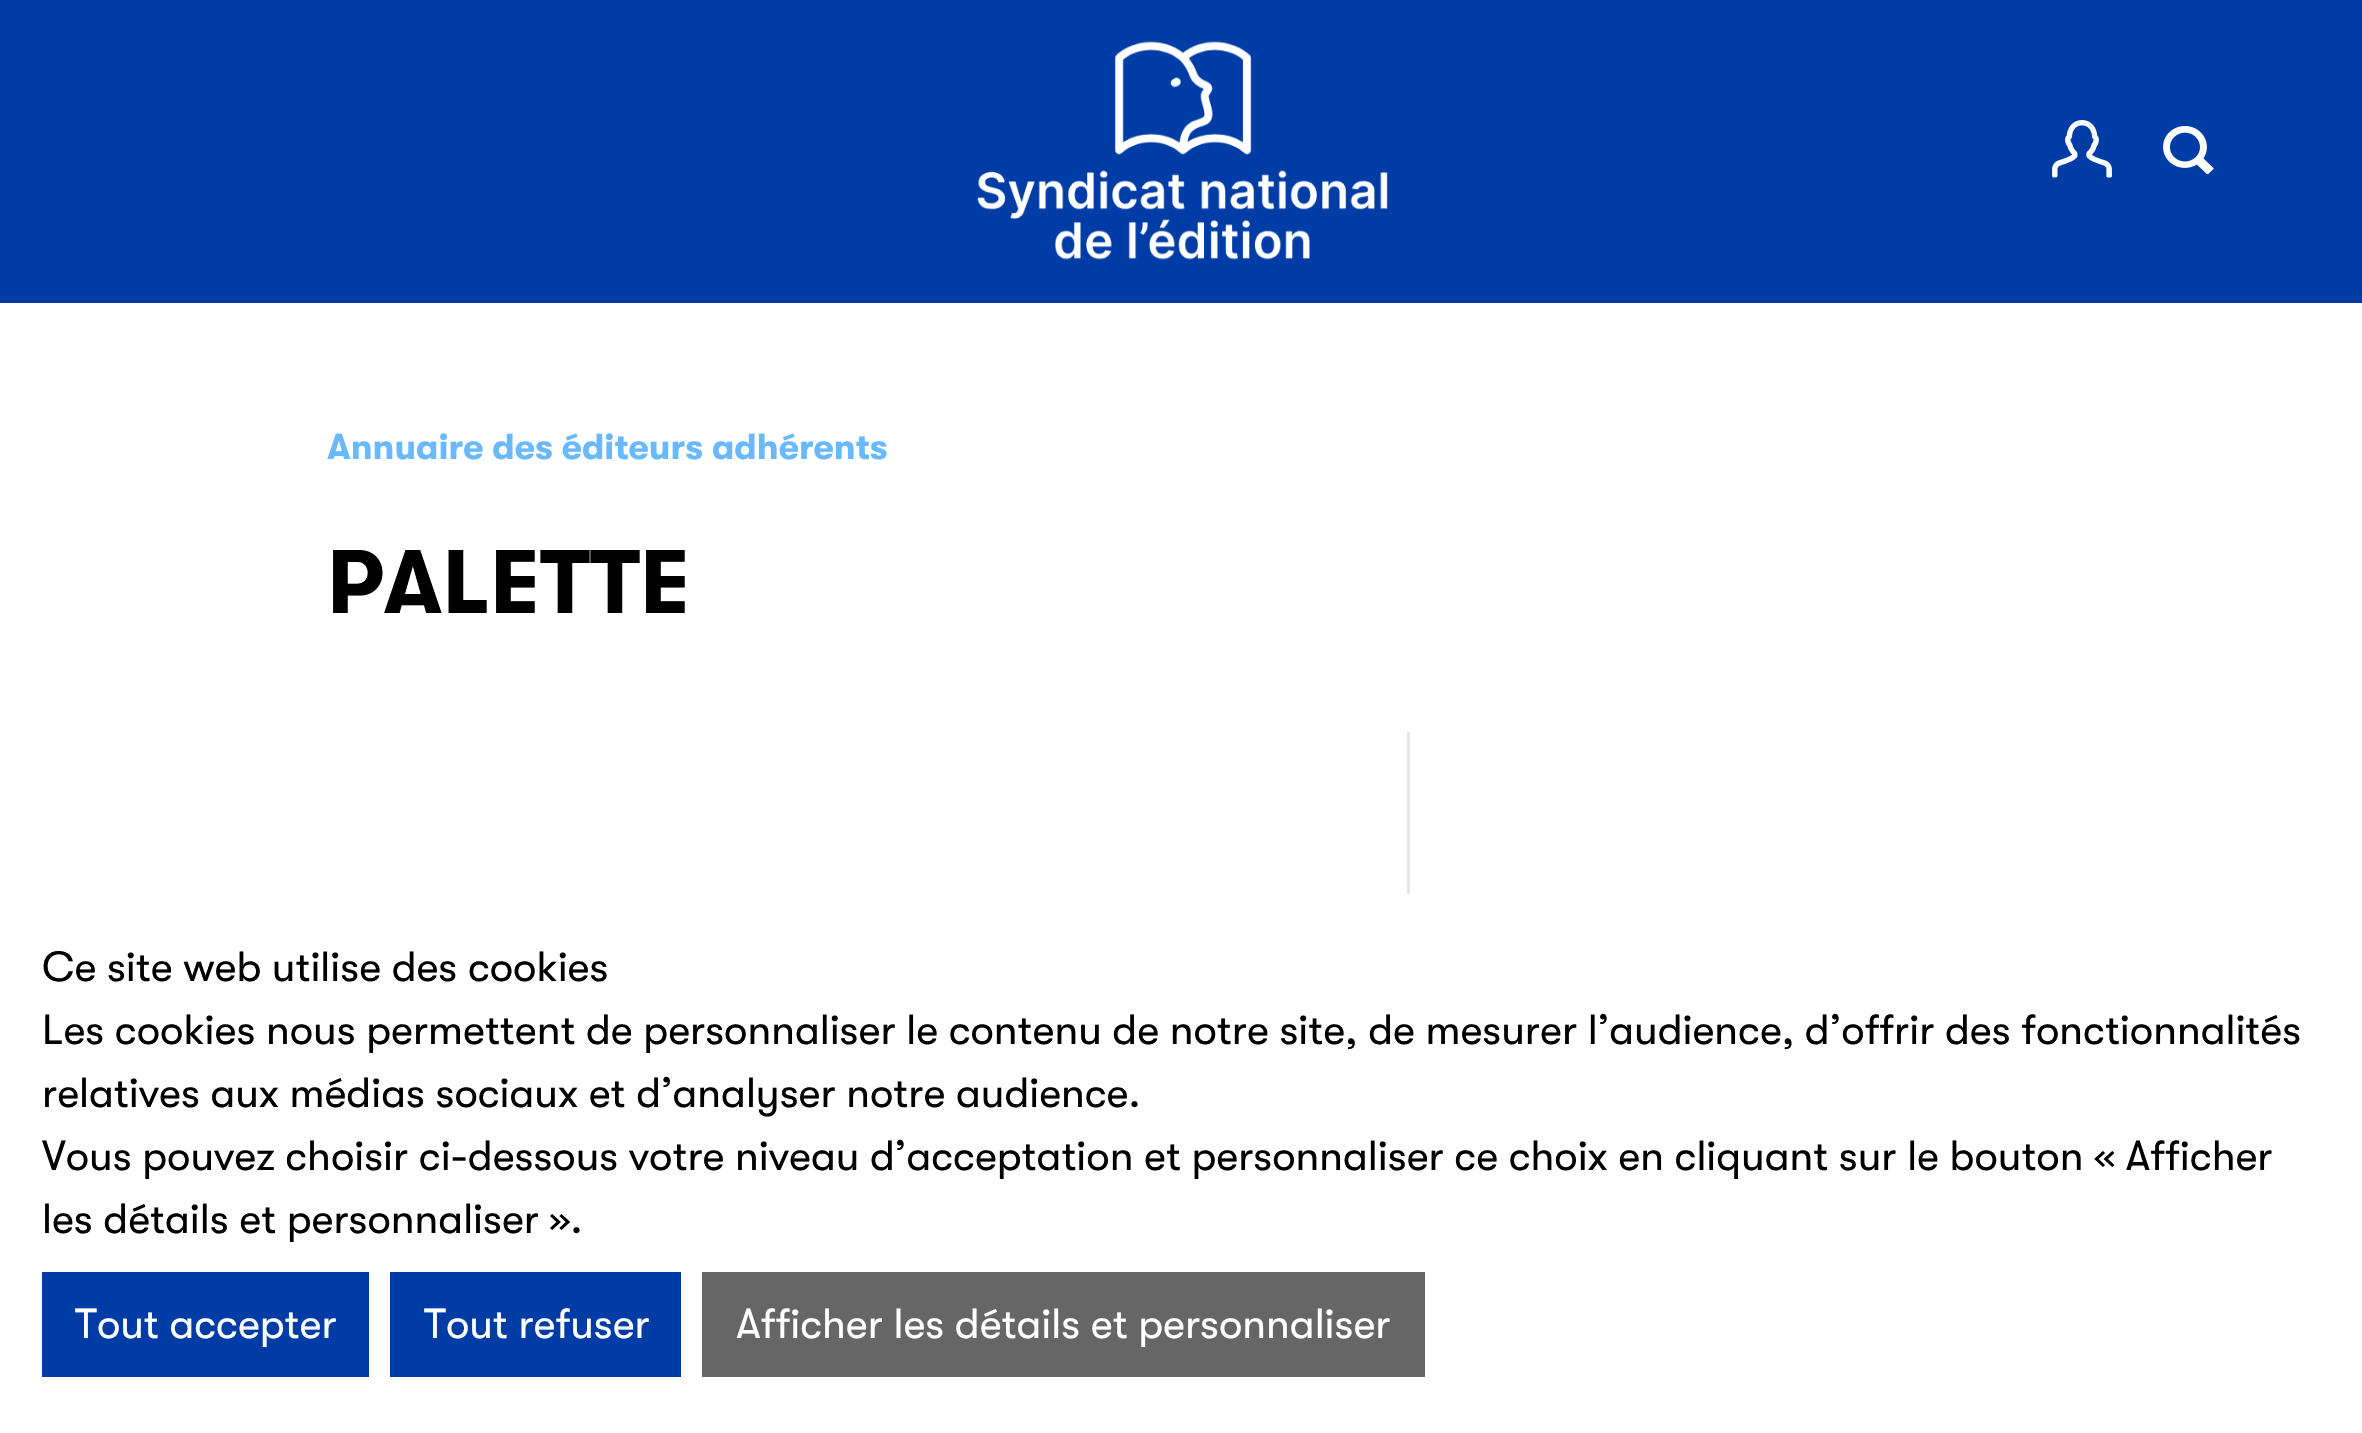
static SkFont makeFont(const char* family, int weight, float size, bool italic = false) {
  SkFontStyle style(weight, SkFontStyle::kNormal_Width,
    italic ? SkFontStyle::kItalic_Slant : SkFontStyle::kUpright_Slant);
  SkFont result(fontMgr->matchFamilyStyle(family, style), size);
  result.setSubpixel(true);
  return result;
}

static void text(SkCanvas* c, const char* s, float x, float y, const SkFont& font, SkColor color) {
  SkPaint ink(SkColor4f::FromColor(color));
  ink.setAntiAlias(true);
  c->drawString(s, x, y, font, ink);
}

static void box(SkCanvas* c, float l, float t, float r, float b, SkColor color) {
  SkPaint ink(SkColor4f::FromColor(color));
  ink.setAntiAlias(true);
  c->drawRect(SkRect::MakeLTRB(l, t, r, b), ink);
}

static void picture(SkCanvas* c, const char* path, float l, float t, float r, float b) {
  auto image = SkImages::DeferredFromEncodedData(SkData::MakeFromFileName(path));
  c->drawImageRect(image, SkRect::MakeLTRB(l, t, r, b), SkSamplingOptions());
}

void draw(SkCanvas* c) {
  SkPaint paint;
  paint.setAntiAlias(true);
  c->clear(0xffffffff);
  box(c, 0, 0, 2362, 303, 0xff003ca5);
  picture(c, "img_01.png", 977, 41, 1388, 260);
  picture(c, "img_02.png", 2052, 120, 2112, 178);
  picture(c, "img_03.png", 2163, 126, 2214, 174);
  SkFont face1 = makeFont("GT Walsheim", 700, 36);
  text(c, "Annuaire des éditeurs adhérents", 327, 459, face1, 0xff69b9ff);
  SkFont face2 = makeFont("GT Walsheim", 700, 90);
  text(c, "PALETTE", 327, 613, face2, 0xff000000);
  box(c, 1407, 732, 1410, 894, 0xffe5e5e5);
  SkFont face3 = makeFont("GT Walsheim", 400, 42);
  text(c, "Ce site web utilise des cookies", 42, 981, face3, 0xff000000);
  text(c, "Les cookies nous permettent de personnaliser le contenu de notre site, de mesurer l’audience, d’offrir des fonctionnalités", 42, 1044, face3, 0xff000000);
  text(c, "relatives aux médias sociaux et d’analyser notre audience.", 42, 1107, face3, 0xff000000);
  text(c, "Vous pouvez choisir ci-dessous votre niveau d’acceptation et personnaliser ce choix en cliquant sur le bouton « Afficher", 42, 1170, face3, 0xff000000);
  text(c, "les détails et personnaliser ».", 42, 1233, face3, 0xff000000);
  box(c, 42, 1272, 369, 1377, 0xff003ca5);
  text(c, "Tout accepter", 75, 1338, face3, 0xffffffff);
  box(c, 390, 1272, 681, 1377, 0xff003ca5);
  text(c, "Tout refuser", 424, 1338, face3, 0xffffffff);
  box(c, 702, 1272, 1425, 1377, 0xff666666);
  text(c, "Afficher les détails et personnaliser", 736, 1338, face3, 0xffffffff);
}
